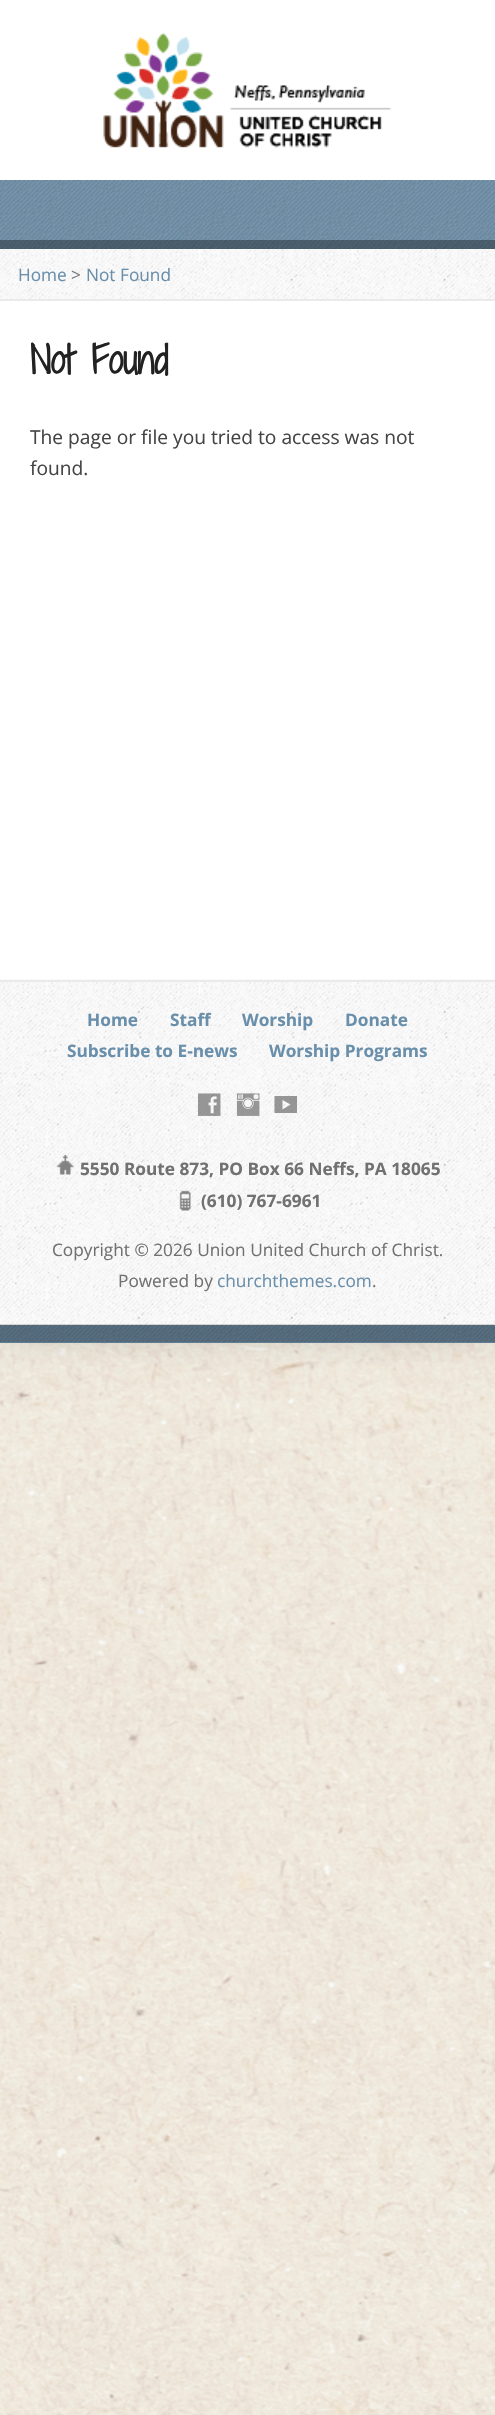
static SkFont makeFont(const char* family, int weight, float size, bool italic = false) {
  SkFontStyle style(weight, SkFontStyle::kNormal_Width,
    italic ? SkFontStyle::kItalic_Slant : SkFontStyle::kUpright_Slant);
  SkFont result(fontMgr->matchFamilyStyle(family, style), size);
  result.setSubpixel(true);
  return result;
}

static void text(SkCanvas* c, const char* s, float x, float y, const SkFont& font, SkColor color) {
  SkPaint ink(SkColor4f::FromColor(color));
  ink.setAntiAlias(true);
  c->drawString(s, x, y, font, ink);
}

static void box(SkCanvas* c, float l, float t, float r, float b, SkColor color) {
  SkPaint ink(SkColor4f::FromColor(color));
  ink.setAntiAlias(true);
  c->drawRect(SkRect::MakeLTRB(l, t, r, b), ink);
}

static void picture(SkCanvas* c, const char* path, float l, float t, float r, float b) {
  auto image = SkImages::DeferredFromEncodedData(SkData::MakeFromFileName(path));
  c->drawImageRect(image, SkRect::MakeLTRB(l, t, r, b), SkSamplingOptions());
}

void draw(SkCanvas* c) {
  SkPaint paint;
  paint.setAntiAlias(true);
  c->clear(0xffffffff);
  picture(c, "img_10.png", 0, 1343, 495, 2415);
  paint.setColor(0x1f000000);
  paint.setMaskFilter(SkMaskFilter::MakeBlur(kNormal_SkBlurStyle, 15));
  c->drawRect(SkRect::MakeLTRB(0, 0, 495, 1343), paint);
  paint.setMaskFilter(nullptr);
  box(c, 0, 0, 495, 1325, 0xffffffff);
  picture(c, "img_01.png", 103, 32, 392, 148);
  box(c, 0, 180, 495, 249, 0xff6a8fab);
  picture(c, "img_02.png", 0, 180, 495, 249);
  box(c, 0, 240, 495, 249, 0x59000000);
  picture(c, "img_03.png", 0, 249, 495, 299);
  box(c, 0, 299, 495, 301, 0xffeaeaea);
  SkFont face1 = makeFont("Open Sans", 400, 17.25f);
  text(c, "Home", 18, 281, face1, 0xff6a8fab);
  text(c, ">", 71, 281, face1, 0xff777777);
  text(c, "Not Found", 86, 281, face1, 0xff6a8fab);
  SkFont face2 = makeFont("Shadows Into Light Two", 700, 36.5f);
  text(c, "Not Found", 30, 374, face2, 0xff222222);
  SkFont face3 = makeFont("Open Sans", 400, 19.2f);
  text(c, "The page or file you tried to access was not", 30, 444, face3, 0xff444444);
  text(c, "found.", 30, 475, face3, 0xff444444);
  picture(c, "img_04.png", 0, 979, 495, 1325);
  box(c, 0, 980, 495, 982, 0xffeaeaea);
  SkFont face4 = makeFont("Open Sans", 700, 17.25f);
  text(c, "Home", 87, 1026, face4, 0xff6a8fab);
  text(c, "Staff", 170, 1026, face4, 0xff6a8fab);
  text(c, "Worship", 242, 1026, face4, 0xff6a8fab);
  text(c, "Donate", 345, 1026, face4, 0xff6a8fab);
  text(c, "Subscribe to E-news", 67, 1057, face4, 0xff6a8fab);
  text(c, "Worship Programs", 269, 1057, face4, 0xff6a8fab);
  picture(c, "img_05.png", 198, 1093, 221, 1116);
  picture(c, "img_06.png", 236, 1093, 260, 1116);
  paint.setColor(0x99555555);
  c->drawPath(SkPathBuilder().moveTo(297, 1113).lineTo(274.5f, 1113).lineTo(274.5f, 1096).lineTo(297, 1096).close().moveTo(282.5f, 1109.5f).lineTo(290.5f, 1104.5f).lineTo(282.5f, 1100).close().detach(), paint);
  picture(c, "img_07.png", 56, 1155, 74, 1175);
  text(c, "5550 Route 873, PO Box 66 Neffs, PA 18065", 80, 1175, face4, 0xff717171);
  picture(c, "img_08.png", 179, 1190, 191, 1211);
  text(c, "(610) 767-6961", 201, 1207, face4, 0xff717171);
  text(c, "Copyright © 2026 Union United Church of Christ.", 52, 1256, face1, 0xff717171);
  text(c, "Powered by", 118, 1287, face1, 0xff717171);
  text(c, "churchthemes.com", 217, 1287, face1, 0xff6a8fab);
  text(c, ".", 372, 1287, face1, 0xff717171);
  box(c, 0, 1325, 495, 1343, 0xff6a8fab);
  picture(c, "img_09.png", 0, 1324, 495, 1343);
}
